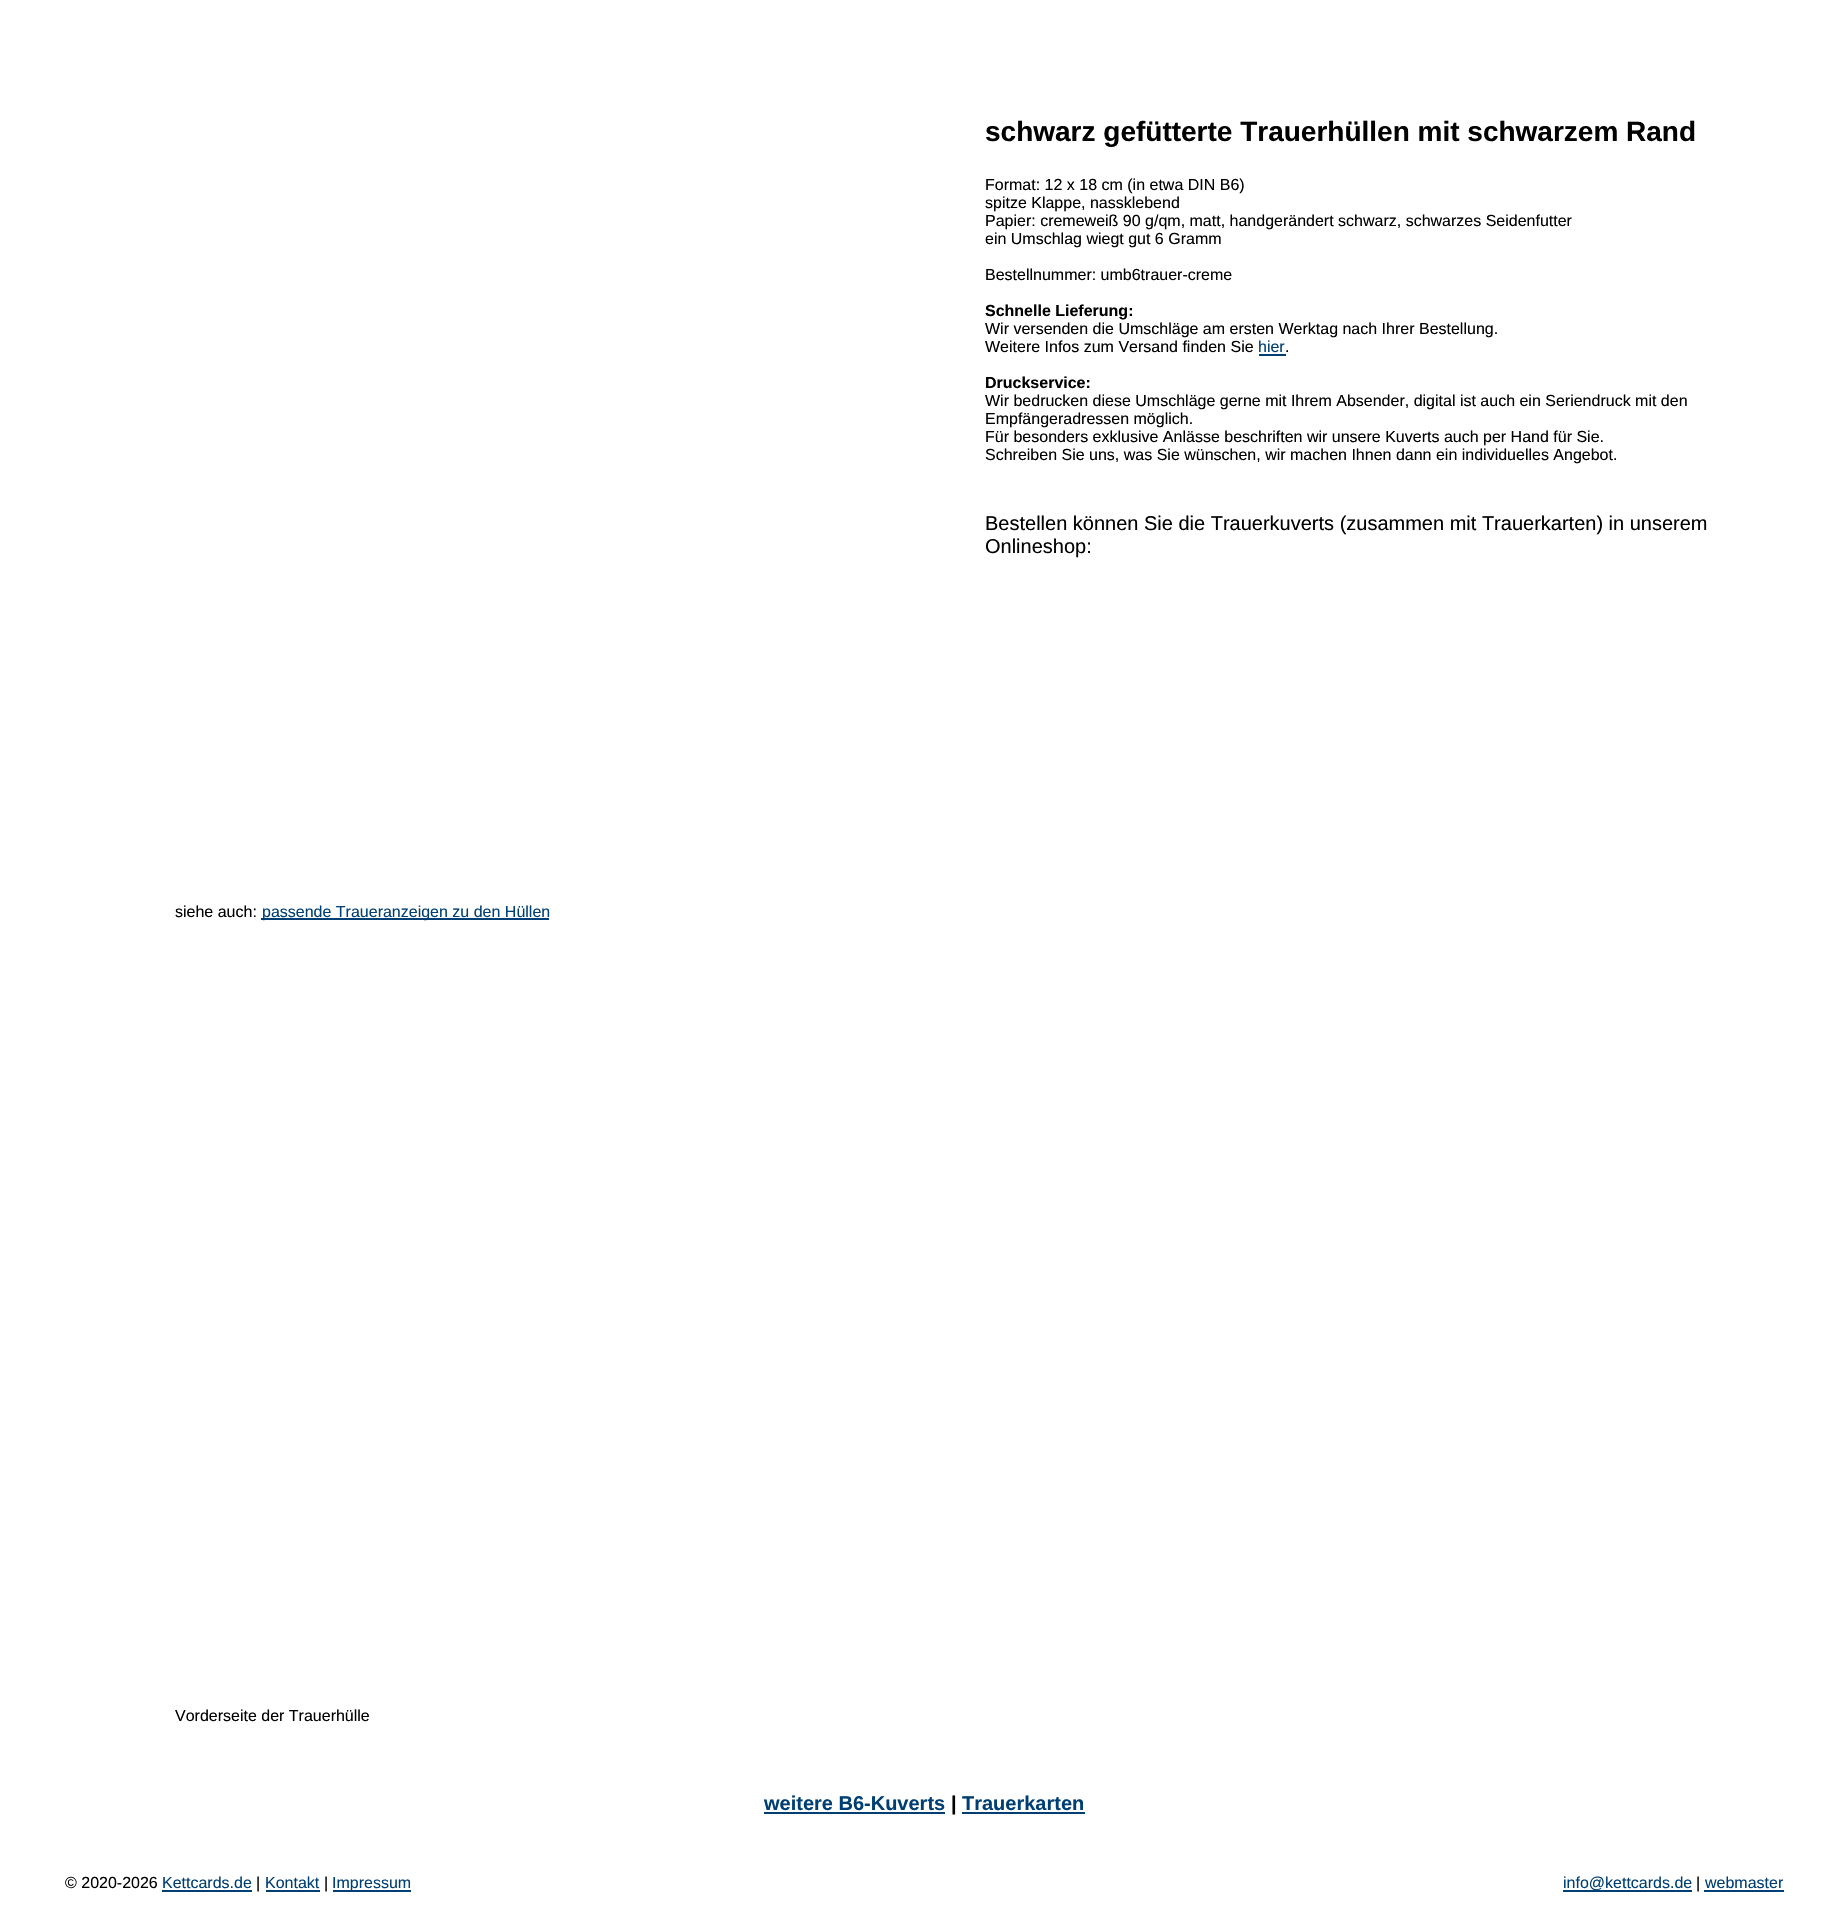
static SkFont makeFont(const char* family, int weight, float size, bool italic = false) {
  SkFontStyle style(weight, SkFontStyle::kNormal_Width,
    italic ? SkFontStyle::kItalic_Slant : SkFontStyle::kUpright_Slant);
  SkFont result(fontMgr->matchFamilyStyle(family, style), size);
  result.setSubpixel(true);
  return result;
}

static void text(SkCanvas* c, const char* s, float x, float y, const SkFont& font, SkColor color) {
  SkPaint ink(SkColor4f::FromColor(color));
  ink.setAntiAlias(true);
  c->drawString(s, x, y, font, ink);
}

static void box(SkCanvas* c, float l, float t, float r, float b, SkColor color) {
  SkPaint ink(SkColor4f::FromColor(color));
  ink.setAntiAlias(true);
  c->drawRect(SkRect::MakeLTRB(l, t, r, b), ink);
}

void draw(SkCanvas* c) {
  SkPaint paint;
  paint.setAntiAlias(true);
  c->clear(0xffffffff);
  SkFont face1 = makeFont("Liberation Sans", 700, 28);
  text(c, "schwarz gefütterte Trauerhüllen mit schwarzem Rand", 985, 141, face1, 0xff000000);
  SkFont face2 = makeFont("Liberation Sans", 400, 16);
  text(c, "Format: 12 x 18 cm (in etwa DIN B6)", 985, 190, face2, 0xff000000);
  text(c, "spitze Klappe, nassklebend", 985, 208, face2, 0xff000000);
  text(c, "Papier: cremeweiß 90 g/qm, matt, handgerändert schwarz, schwarzes Seidenfutter", 985, 226, face2, 0xff000000);
  text(c, "ein Umschlag wiegt gut 6 Gramm", 985, 244, face2, 0xff000000);
  text(c, "Bestellnummer: umb6trauer-creme", 985, 280, face2, 0xff000000);
  SkFont face3 = makeFont("Liberation Sans", 700, 16);
  text(c, "Schnelle Lieferung:", 985, 316, face3, 0xff000000);
  text(c, "Wir versenden die Umschläge am ersten Werktag nach Ihrer Bestellung.", 985, 334, face2, 0xff000000);
  text(c, "Weitere Infos zum Versand finden Sie", 985, 352, face2, 0xff000000);
  text(c, "hier", 1258, 352, face2, 0xff003f73);
  box(c, 1259, 354, 1286, 356, 0xff003f73);
  text(c, ".", 1285, 352, face2, 0xff000000);
  text(c, "Druckservice:", 985, 388, face3, 0xff000000);
  text(c, "Wir bedrucken diese Umschläge gerne mit Ihrem Absender, digital ist auch ein Seriendruck mit den", 985, 406, face2, 0xff000000);
  text(c, "Empfängeradressen möglich.", 985, 424, face2, 0xff000000);
  text(c, "Für besonders exklusive Anlässe beschriften wir unsere Kuverts auch per Hand für Sie.", 985, 442, face2, 0xff000000);
  text(c, "Schreiben Sie uns, was Sie wünschen, wir machen Ihnen dann ein individuelles Angebot.", 985, 460, face2, 0xff000000);
  SkFont face4 = makeFont("Liberation Sans", 400, 20);
  text(c, "Bestellen können Sie die Trauerkuverts (zusammen mit Trauerkarten) in unserem", 985, 530, face4, 0xff000000);
  text(c, "Onlineshop:", 985, 553, face4, 0xff000000);
  text(c, "siehe auch:", 175, 917, face2, 0xff000000);
  box(c, 261, 918, 549, 920, 0xff003f73);
  text(c, "passende Traueranzeigen zu den Hüllen", 262, 917, face2, 0xff003f73);
  text(c, "Vorderseite der Trauerhülle", 175, 1721, face2, 0xff000000);
  SkFont face5 = makeFont("Liberation Sans", 700, 20);
  text(c, "weitere B6-Kuverts", 764, 1810, face5, 0xff003f73);
  box(c, 764, 1812, 945, 1814, 0xff003f73);
  text(c, "|", 951, 1810, face5, 0xff000000);
  text(c, "Trauerkarten", 962, 1810, face5, 0xff003f73);
  box(c, 962, 1812, 1085, 1814, 0xff003f73);
  text(c, "© 2020-2026", 65, 1888, face2, 0xff000000);
  text(c, "Kettcards.de", 162, 1888, face2, 0xff003f73);
  box(c, 162, 1890, 252, 1892, 0xff003f73);
  text(c, "|", 256, 1888, face2, 0xff000000);
  text(c, "Kontakt", 265, 1888, face2, 0xff003f73);
  box(c, 266, 1890, 320, 1892, 0xff003f73);
  text(c, "|", 324, 1888, face2, 0xff000000);
  box(c, 333, 1890, 411, 1892, 0xff003f73);
  text(c, "Impressum", 332, 1888, face2, 0xff003f73);
  box(c, 1563, 1890, 1692, 1892, 0xff003f73);
  text(c, "info@kettcards.de", 1563, 1888, face2, 0xff003f73);
  text(c, "|", 1696, 1888, face2, 0xff000000);
  text(c, "webmaster", 1705, 1888, face2, 0xff003f73);
  box(c, 1704, 1890, 1784, 1892, 0xff003f73);
}
